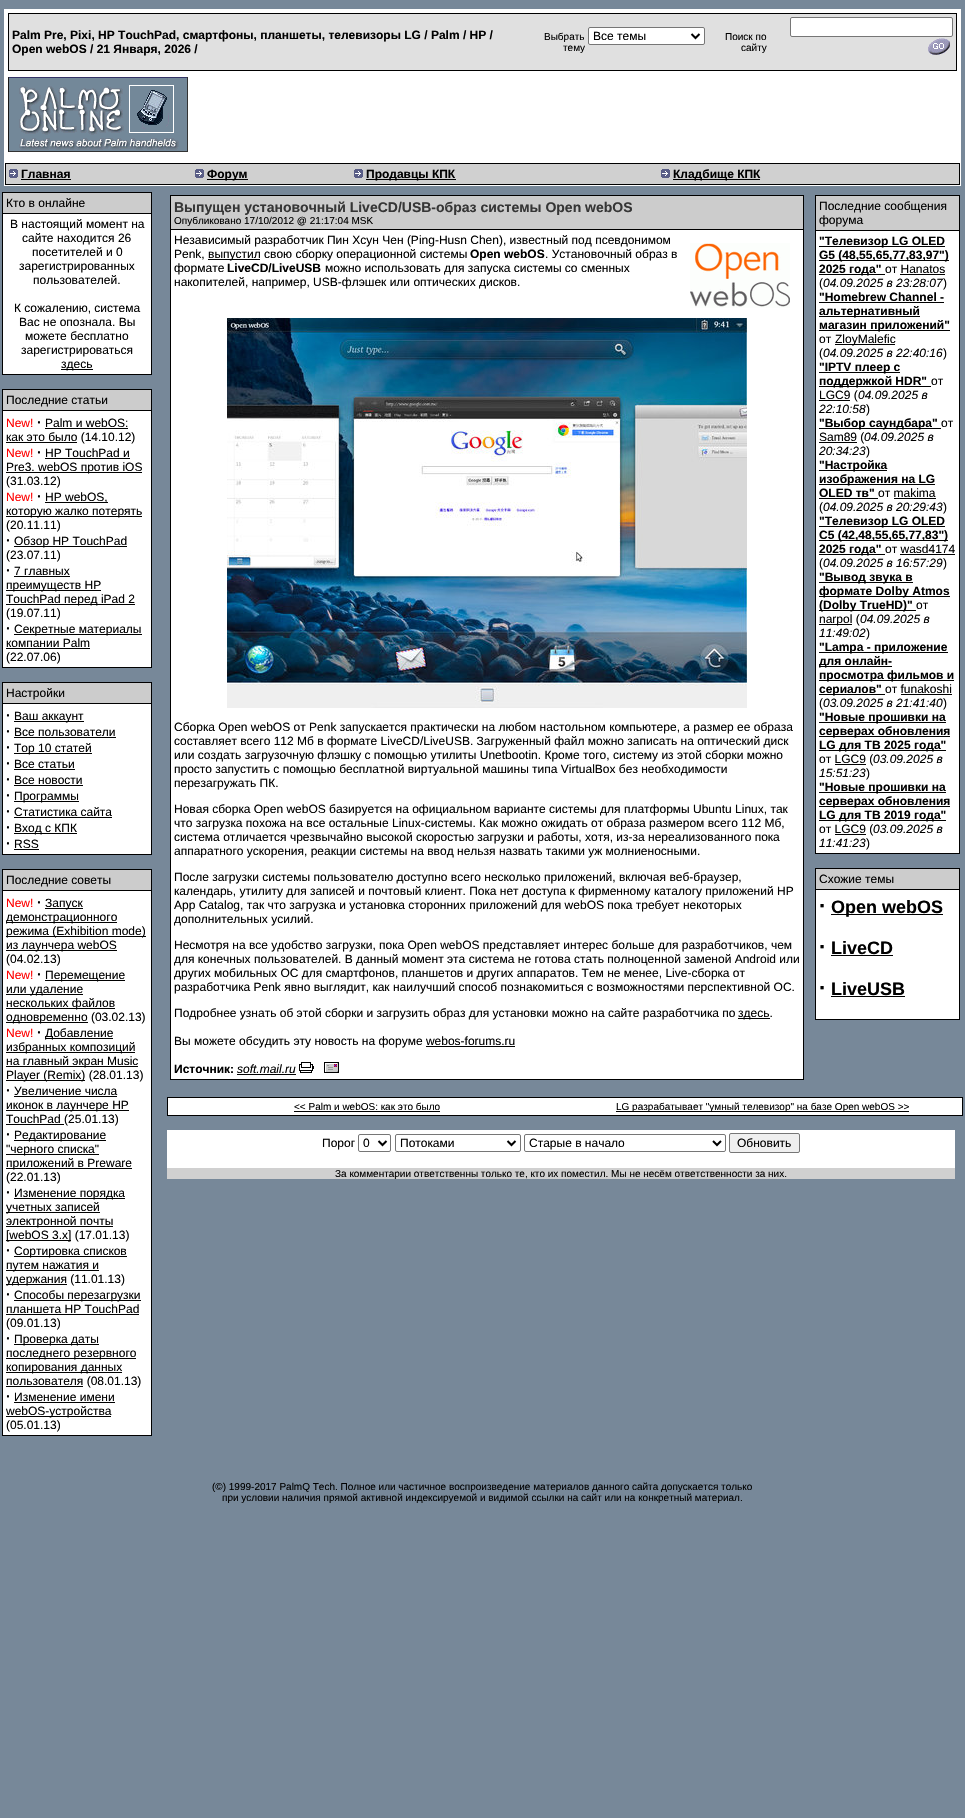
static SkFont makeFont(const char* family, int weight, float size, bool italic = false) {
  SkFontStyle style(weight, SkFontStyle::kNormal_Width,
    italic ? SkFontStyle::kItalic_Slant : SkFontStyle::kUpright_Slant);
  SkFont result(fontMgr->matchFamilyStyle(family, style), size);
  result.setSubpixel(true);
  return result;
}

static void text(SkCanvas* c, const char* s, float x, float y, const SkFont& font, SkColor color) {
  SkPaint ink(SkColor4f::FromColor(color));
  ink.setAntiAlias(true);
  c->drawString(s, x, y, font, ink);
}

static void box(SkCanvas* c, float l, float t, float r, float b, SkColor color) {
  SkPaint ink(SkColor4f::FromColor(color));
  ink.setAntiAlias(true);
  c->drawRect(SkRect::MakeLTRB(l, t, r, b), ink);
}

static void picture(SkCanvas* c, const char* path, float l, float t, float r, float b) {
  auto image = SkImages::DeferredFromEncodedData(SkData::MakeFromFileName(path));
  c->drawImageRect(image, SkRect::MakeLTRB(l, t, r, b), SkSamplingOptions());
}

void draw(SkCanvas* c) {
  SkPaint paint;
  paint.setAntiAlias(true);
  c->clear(0xff778899);
  box(c, 4, 9, 961, 186, 0xffffffff);
  box(c, 8, 13, 957, 71, 0xff000000);
  box(c, 9, 14, 956, 70, 0xffe0e0e0);
  SkFont face1 = makeFont("Liberation Sans", 700, 12);
  text(c, "Palm Pre, Pixi, HP TouchPad, смартфоны, планшеты, телевизоры LG / Palm / HP /", 12, 39, face1, 0xff000000);
  text(c, "Open webOS / 21 Января, 2026 /", 12, 53, face1, 0xff000000);
  SkFont face2 = makeFont("Liberation Sans", 400, 10);
  text(c, "Выбрать", 544, 40, face2, 0xff000000);
  text(c, "тему", 563, 51, face2, 0xff000000);
  paint.setColor(0xffffffff);
  c->drawRoundRect(SkRect::MakeLTRB(588.5f, 27.5f, 704.5f, 44.5f), 1.5f, 1.5f, paint);
  paint.setStyle(SkPaint::kStroke_Style);
  paint.setStrokeWidth(1);
  paint.setColor(0xff767676);
  c->drawRoundRect(SkRect::MakeLTRB(588.5f, 27.5f, 704.5f, 44.5f), 1.5f, 1.5f, paint);
  paint.setStrokeWidth(2);
  paint.setColor(0xff000000);
  c->drawPath(SkPathBuilder().moveTo(691.5f, 34).lineTo(695.5f, 38).lineTo(699.5f, 34).detach(), paint);
  SkFont face3 = makeFont("Liberation Sans", 400, 12);
  text(c, "Все темы", 593, 40, face3, 0xff000000);
  text(c, "Поиск по", 725, 40, face2, 0xff000000);
  text(c, "сайту", 741, 51, face2, 0xff000000);
  paint.setStyle(SkPaint::kFill_Style);
  paint.setColor(0xffffffff);
  c->drawRoundRect(SkRect::MakeLTRB(790.5f, 17.5f, 952.5f, 36.5f), 1.5f, 1.5f, paint);
  paint.setStyle(SkPaint::kStroke_Style);
  paint.setStrokeWidth(1);
  paint.setColor(0xff767676);
  c->drawRoundRect(SkRect::MakeLTRB(790.5f, 17.5f, 952.5f, 36.5f), 1.5f, 1.5f, paint);
  picture(c, "img_01.png", 928, 38, 950, 55);
  picture(c, "img_02.png", 8, 77, 188, 152);
  box(c, 5, 163, 960, 185, 0xff000000);
  box(c, 6, 164, 959, 184, 0xffd0d0d0);
  picture(c, "img_03.png", 9, 169, 18, 178);
  text(c, "Главная", 21, 178, face1, 0xff000000);
  box(c, 21, 179, 71, 180, 0xff000000);
  picture(c, "img_03.png", 195, 169, 204, 178);
  box(c, 207, 179, 248, 180, 0xff000000);
  text(c, "Форум", 207, 178, face1, 0xff000000);
  picture(c, "img_03.png", 354, 169, 363, 178);
  box(c, 366, 179, 456, 180, 0xff000000);
  text(c, "Продавцы КПК", 366, 178, face1, 0xff000000);
  picture(c, "img_03.png", 661, 169, 670, 178);
  box(c, 673, 179, 760, 180, 0xff000000);
  text(c, "Кладбище КПК", 673, 178, face1, 0xff000000);
  box(c, 2, 192, 152, 375, 0xff000000);
  box(c, 3, 193, 151, 213, 0xffcccccc);
  text(c, "Кто в онлайне", 6, 207, face3, 0xff000000);
  box(c, 3, 214, 151, 374, 0xffffffff);
  text(c, "В настоящий момент на", 10, 228, face3, 0xff000000);
  text(c, "сайте находится 26", 22, 242, face3, 0xff000000);
  text(c, "посетителей и 0", 32, 256, face3, 0xff000000);
  text(c, "зарегистрированных", 19, 270, face3, 0xff000000);
  text(c, "пользователей.", 33, 284, face3, 0xff000000);
  text(c, "К сожалению, система", 14, 312, face3, 0xff000000);
  text(c, "Вас не опознала. Вы", 19, 326, face3, 0xff000000);
  text(c, "можете бесплатно", 25, 340, face3, 0xff000000);
  text(c, "зарегистрироваться", 21, 354, face3, 0xff000000);
  box(c, 61, 369, 93, 370, 0xff000000);
  text(c, "здесь", 61, 368, face3, 0xff000000);
  box(c, 2, 389, 152, 668, 0xff000000);
  box(c, 3, 390, 151, 410, 0xffcccccc);
  text(c, "Последние статьи", 6, 404, face3, 0xff000000);
  box(c, 3, 411, 151, 667, 0xffffffff);
  text(c, "New!", 6, 427, face3, 0xffff0000);
  SkFont face4 = makeFont("Liberation Sans", 700, 14);
  text(c, "·", 37, 427, face4, 0xff000000);
  text(c, "Palm и webOS:", 45, 427, face3, 0xff000000);
  box(c, 45, 428, 128, 429, 0xff000000);
  box(c, 6, 442, 77, 443, 0xff000000);
  text(c, "как это было (14.10.12)", 6, 441, face3, 0xff000000);
  text(c, "New!", 6, 457, face3, 0xffff0000);
  text(c, "·", 37, 457, face4, 0xff000000);
  text(c, "HP TouchPad и", 45, 457, face3, 0xff000000);
  box(c, 45, 458, 130, 459, 0xff000000);
  box(c, 6, 472, 142, 473, 0xff000000);
  text(c, "Pre3. webOS против iOS", 6, 471, face3, 0xff000000);
  text(c, "(31.03.12)", 6, 485, face3, 0xff000000);
  text(c, "New!", 6, 501, face3, 0xffff0000);
  text(c, "·", 37, 501, face4, 0xff000000);
  box(c, 45, 502, 108, 503, 0xff000000);
  text(c, "HP webOS,", 45, 501, face3, 0xff000000);
  box(c, 6, 516, 142, 517, 0xff000000);
  text(c, "которую жалко потерять", 6, 515, face3, 0xff000000);
  text(c, "(20.11.11)", 6, 529, face3, 0xff000000);
  text(c, "·", 6, 545, face4, 0xff000000);
  box(c, 14, 546, 127, 547, 0xff000000);
  text(c, "Обзор HP TouchPad", 14, 545, face3, 0xff000000);
  text(c, "(23.07.11)", 6, 559, face3, 0xff000000);
  text(c, "·", 6, 575, face4, 0xff000000);
  text(c, "7 главных", 14, 575, face3, 0xff000000);
  box(c, 14, 576, 70, 577, 0xff000000);
  box(c, 6, 590, 101, 591, 0xff000000);
  text(c, "преимуществ HP", 6, 589, face3, 0xff000000);
  box(c, 6, 604, 135, 605, 0xff000000);
  text(c, "TouchPad перед iPad 2", 6, 603, face3, 0xff000000);
  text(c, "(19.07.11)", 6, 617, face3, 0xff000000);
  text(c, "·", 6, 633, face4, 0xff000000);
  box(c, 14, 634, 142, 635, 0xff000000);
  text(c, "Секретные материалы", 14, 633, face3, 0xff000000);
  text(c, "компании Palm", 6, 647, face3, 0xff000000);
  box(c, 6, 648, 90, 649, 0xff000000);
  text(c, "(22.07.06)", 6, 661, face3, 0xff000000);
  box(c, 2, 682, 152, 855, 0xff000000);
  box(c, 3, 683, 151, 703, 0xffcccccc);
  text(c, "Настройки", 6, 697, face3, 0xff000000);
  box(c, 3, 704, 151, 854, 0xffffffff);
  text(c, "·", 6, 720, face4, 0xff000000);
  box(c, 14, 721, 84, 722, 0xff000000);
  text(c, "Ваш аккаунт", 14, 720, face3, 0xff000000);
  text(c, "·", 6, 736, face4, 0xff000000);
  text(c, "Все пользователи", 14, 736, face3, 0xff000000);
  box(c, 14, 737, 116, 738, 0xff000000);
  text(c, "·", 6, 752, face4, 0xff000000);
  box(c, 14, 753, 92, 754, 0xff000000);
  text(c, "Top 10 статей", 14, 752, face3, 0xff000000);
  text(c, "·", 6, 768, face4, 0xff000000);
  text(c, "Все статьи", 14, 768, face3, 0xff000000);
  box(c, 14, 769, 75, 770, 0xff000000);
  text(c, "·", 6, 784, face4, 0xff000000);
  text(c, "Все новости", 14, 784, face3, 0xff000000);
  box(c, 14, 785, 83, 786, 0xff000000);
  text(c, "·", 6, 800, face4, 0xff000000);
  box(c, 14, 801, 79, 802, 0xff000000);
  text(c, "Программы", 14, 800, face3, 0xff000000);
  text(c, "·", 6, 816, face4, 0xff000000);
  text(c, "Статистика сайта", 14, 816, face3, 0xff000000);
  box(c, 14, 817, 112, 818, 0xff000000);
  text(c, "·", 6, 832, face4, 0xff000000);
  box(c, 14, 833, 77, 834, 0xff000000);
  text(c, "Вход с КПК", 14, 832, face3, 0xff000000);
  text(c, "·", 6, 848, face4, 0xff000000);
  text(c, "RSS", 14, 848, face3, 0xff000000);
  box(c, 14, 849, 39, 850, 0xff000000);
  box(c, 2, 869, 152, 1436, 0xff000000);
  box(c, 3, 870, 151, 890, 0xffcccccc);
  text(c, "Последние советы", 6, 884, face3, 0xff000000);
  box(c, 3, 891, 151, 1435, 0xffffffff);
  text(c, "New!", 6, 907, face3, 0xffff0000);
  text(c, "·", 37, 907, face4, 0xff000000);
  box(c, 45, 908, 83, 909, 0xff000000);
  text(c, "Запуск", 45, 907, face3, 0xff000000);
  box(c, 6, 922, 117, 923, 0xff000000);
  text(c, "демонстрационного", 6, 921, face3, 0xff000000);
  box(c, 6, 936, 146, 937, 0xff000000);
  text(c, "режима (Exhibition mode)", 6, 935, face3, 0xff000000);
  box(c, 6, 950, 117, 951, 0xff000000);
  text(c, "из лаунчера webOS", 6, 949, face3, 0xff000000);
  text(c, "(04.02.13)", 6, 963, face3, 0xff000000);
  text(c, "New!", 6, 979, face3, 0xffff0000);
  text(c, "·", 37, 979, face4, 0xff000000);
  box(c, 45, 980, 125, 981, 0xff000000);
  text(c, "Перемещение", 45, 979, face3, 0xff000000);
  box(c, 6, 994, 83, 995, 0xff000000);
  text(c, "или удаление", 6, 993, face3, 0xff000000);
  box(c, 6, 1008, 115, 1009, 0xff000000);
  text(c, "нескольких файлов", 6, 1007, face3, 0xff000000);
  box(c, 6, 1022, 88, 1023, 0xff000000);
  text(c, "одновременно (03.02.13)", 6, 1021, face3, 0xff000000);
  text(c, "New!", 6, 1037, face3, 0xffff0000);
  text(c, "·", 37, 1037, face4, 0xff000000);
  box(c, 45, 1038, 113, 1039, 0xff000000);
  text(c, "Добавление", 45, 1037, face3, 0xff000000);
  box(c, 6, 1052, 135, 1053, 0xff000000);
  text(c, "избранных композиций", 6, 1051, face3, 0xff000000);
  box(c, 6, 1066, 138, 1067, 0xff000000);
  text(c, "на главный экран Music", 6, 1065, face3, 0xff000000);
  box(c, 6, 1080, 85, 1081, 0xff000000);
  text(c, "Player (Remix) (28.01.13)", 6, 1079, face3, 0xff000000);
  text(c, "·", 6, 1095, face4, 0xff000000);
  text(c, "Увеличение числа", 14, 1095, face3, 0xff000000);
  box(c, 14, 1096, 117, 1097, 0xff000000);
  box(c, 6, 1110, 129, 1111, 0xff000000);
  text(c, "иконок в лаунчере HP", 6, 1109, face3, 0xff000000);
  box(c, 6, 1124, 64, 1125, 0xff000000);
  text(c, "TouchPad (25.01.13)", 6, 1123, face3, 0xff000000);
  text(c, "·", 6, 1139, face4, 0xff000000);
  box(c, 14, 1140, 106, 1141, 0xff000000);
  text(c, "Редактирование", 14, 1139, face3, 0xff000000);
  box(c, 6, 1154, 99, 1155, 0xff000000);
  text(c, "\"черного списка\"", 6, 1153, face3, 0xff000000);
  box(c, 6, 1168, 132, 1169, 0xff000000);
  text(c, "приложений в Preware", 6, 1167, face3, 0xff000000);
  text(c, "(22.01.13)", 6, 1181, face3, 0xff000000);
  text(c, "·", 6, 1197, face4, 0xff000000);
  box(c, 14, 1198, 125, 1199, 0xff000000);
  text(c, "Изменение порядка", 14, 1197, face3, 0xff000000);
  box(c, 6, 1212, 100, 1213, 0xff000000);
  text(c, "учетных записей", 6, 1211, face3, 0xff000000);
  box(c, 6, 1226, 113, 1227, 0xff000000);
  text(c, "электронной почты", 6, 1225, face3, 0xff000000);
  box(c, 6, 1240, 71, 1241, 0xff000000);
  text(c, "[webOS 3.x] (17.01.13)", 6, 1239, face3, 0xff000000);
  text(c, "·", 6, 1255, face4, 0xff000000);
  box(c, 14, 1256, 127, 1257, 0xff000000);
  text(c, "Сортировка списков", 14, 1255, face3, 0xff000000);
  box(c, 6, 1270, 99, 1271, 0xff000000);
  text(c, "путем нажатия и", 6, 1269, face3, 0xff000000);
  box(c, 6, 1284, 67, 1285, 0xff000000);
  text(c, "удержания (11.01.13)", 6, 1283, face3, 0xff000000);
  text(c, "·", 6, 1299, face4, 0xff000000);
  box(c, 14, 1300, 141, 1301, 0xff000000);
  text(c, "Способы перезагрузки", 14, 1299, face3, 0xff000000);
  text(c, "планшета HP TouchPad", 6, 1313, face3, 0xff000000);
  box(c, 6, 1314, 139, 1315, 0xff000000);
  text(c, "(09.01.13)", 6, 1327, face3, 0xff000000);
  text(c, "·", 6, 1343, face4, 0xff000000);
  box(c, 14, 1344, 99, 1345, 0xff000000);
  text(c, "Проверка даты", 14, 1343, face3, 0xff000000);
  box(c, 6, 1358, 136, 1359, 0xff000000);
  text(c, "последнего резервного", 6, 1357, face3, 0xff000000);
  box(c, 6, 1372, 122, 1373, 0xff000000);
  text(c, "копирования данных", 6, 1371, face3, 0xff000000);
  box(c, 6, 1386, 83, 1387, 0xff000000);
  text(c, "пользователя (08.01.13)", 6, 1385, face3, 0xff000000);
  text(c, "·", 6, 1401, face4, 0xff000000);
  text(c, "Изменение имени", 14, 1401, face3, 0xff000000);
  box(c, 14, 1402, 115, 1403, 0xff000000);
  box(c, 6, 1416, 111, 1417, 0xff000000);
  text(c, "webOS-устройства", 6, 1415, face3, 0xff000000);
  text(c, "(05.01.13)", 6, 1429, face3, 0xff000000);
  box(c, 170, 195, 804, 1080, 0xff000000);
  box(c, 171, 196, 803, 229, 0xffcccccc);
  text(c, "Выпущен установочный LiveCD/USB-образ системы Open webOS", 174, 212, face4, 0xff363636);
  text(c, "Опубликовано 17/10/2012 @ 21:17:04 MSK", 174, 224, face2, 0xff000000);
  box(c, 171, 230, 803, 1079, 0xffffffff);
  text(c, "Независимый разработчик Пин Хсун Чен (Ping-Husn Chen), известный под псевдонимом", 174, 244, face3, 0xff000000);
  text(c, "Penk,", 174, 258, face3, 0xff000000);
  box(c, 208, 259, 260, 260, 0xff000000);
  text(c, "выпустил свою сборку операционной системы", 208, 258, face3, 0xff000000);
  text(c, "Open webOS", 470, 258, face1, 0xff000000);
  text(c, ". Установочный образ в", 545, 258, face3, 0xff000000);
  text(c, "формате", 174, 272, face3, 0xff000000);
  text(c, "LiveCD/LiveUSB", 227, 272, face1, 0xff000000);
  text(c, "можно использовать для запуска системы со сменных", 325, 272, face3, 0xff000000);
  text(c, "накопителей, например, USB-флэшек или оптических дисков.", 174, 286, face3, 0xff000000);
  picture(c, "img_04.png", 227, 318, 747, 708);
  text(c, "Сборка Open webOS от Penk запускается практически на любом настольном компьютере, а размер ее образа", 174, 731, face3, 0xff000000);
  text(c, "составляет всего 112 Мб в формате LiveCD/LiveUSB. Загруженный файл можно записать на оптический диск", 174, 745, face3, 0xff000000);
  text(c, "или создать загрузочную флэшку с помощью утилиты Unetbootin. Кроме того, систему из этой сборки можно", 174, 759, face3, 0xff000000);
  text(c, "просто запустить с помощью бесплатной виртуальной машины типа VirtualBox без необходимости", 174, 773, face3, 0xff000000);
  text(c, "перезагружать ПК.", 174, 787, face3, 0xff000000);
  text(c, "Новая сборка Open webOS базируется на официальном варианте системы для платформы Ubuntu Linux, так", 174, 813, face3, 0xff000000);
  text(c, "что загрузка похожа на все остальные Linux-системы. Как можно ожидать от образа размером всего 112 Мб,", 174, 827, face3, 0xff000000);
  text(c, "система отличается чрезвычайно высокой скоростью загрузки и работы, хотя, из-за нереализованного пока", 174, 841, face3, 0xff000000);
  text(c, "аппаратного ускорения, реакции системы на ввод нельзя назвать такими уж молниеносными.", 174, 855, face3, 0xff000000);
  text(c, "После загрузки системы пользователю доступно всего несколько приложений, включая веб-браузер,", 174, 881, face3, 0xff000000);
  text(c, "календарь, утилиту для записей и почтовый клиент. Пока нет доступа к фирменному каталогу приложений HP", 174, 895, face3, 0xff000000);
  text(c, "App Catalog, так что загрузка и установка сторонних приложений для webOS пока требует некоторых", 174, 909, face3, 0xff000000);
  text(c, "дополнительных усилий.", 174, 923, face3, 0xff000000);
  text(c, "Несмотря на все удобство загрузки, пока Open webOS представляет интерес больше для разработчиков, чем", 174, 949, face3, 0xff000000);
  text(c, "для конечных пользователей. В данный момент эта система не готова стать полноценной заменой Android или", 174, 963, face3, 0xff000000);
  text(c, "других мобильных ОС для смартфонов, планшетов и других аппаратов. Тем не менее, Live-сборка от", 174, 977, face3, 0xff000000);
  text(c, "разработчика Penk явно выглядит, как наилучший способ познакомиться с возможностями перспективной ОС.", 174, 991, face3, 0xff000000);
  text(c, "Подробнее узнать об этой сборки и загрузить образ для установки можно на сайте разработчика по", 174, 1017, face3, 0xff000000);
  box(c, 738, 1018, 770, 1019, 0xff000000);
  text(c, "здесь.", 738, 1017, face3, 0xff000000);
  text(c, "Вы можете обсудить эту новость на форуме webos-forums.ru", 174, 1045, face3, 0xff000000);
  box(c, 426, 1046, 515, 1047, 0xff000000);
  text(c, "Источник:", 174, 1073, face1, 0xff000000);
  SkFont face5 = makeFont("Liberation Sans", 400, 12, true);
  text(c, "soft.mail.ru", 237, 1073, face5, 0xff000000);
  box(c, 237, 1074, 296, 1075, 0xff000000);
  picture(c, "img_05.png", 299, 1062, 314, 1073);
  picture(c, "img_06.png", 324, 1062, 339, 1073);
  picture(c, "img_07.png", 690, 243, 790, 308);
  box(c, 815, 195, 960, 854, 0xff000000);
  box(c, 816, 196, 959, 230, 0xffcccccc);
  text(c, "Последние сообщения", 819, 210, face3, 0xff000000);
  text(c, "форума", 819, 224, face3, 0xff000000);
  box(c, 816, 231, 959, 853, 0xffffffff);
  box(c, 819, 246, 945, 247, 0xff000000);
  text(c, "\"Телевизор LG OLED", 819, 245, face1, 0xff000000);
  box(c, 819, 260, 949, 261, 0xff000000);
  text(c, "G5 (48,55,65,77,83,97\")", 819, 259, face1, 0xff000000);
  box(c, 819, 274, 885, 275, 0xff000000);
  text(c, "2025 года\"", 819, 273, face1, 0xff000000);
  text(c, "от Hanatos", 885, 273, face3, 0xff000000);
  box(c, 900, 274, 945, 275, 0xff000000);
  text(c, "(", 819, 287, face3, 0xff000000);
  text(c, "04.09.2025 в 23:28:07", 823, 287, face5, 0xff000000);
  text(c, ")", 943, 287, face3, 0xff000000);
  text(c, "\"Homebrew Channel -", 819, 301, face1, 0xff000000);
  box(c, 819, 302, 944, 303, 0xff000000);
  box(c, 819, 316, 920, 317, 0xff000000);
  text(c, "альтернативный", 819, 315, face1, 0xff000000);
  box(c, 819, 330, 950, 331, 0xff000000);
  text(c, "магазин приложений\"", 819, 329, face1, 0xff000000);
  text(c, "от", 819, 343, face3, 0xff000000);
  box(c, 835, 344, 895, 345, 0xff000000);
  text(c, "ZloyMalefic", 835, 343, face3, 0xff000000);
  text(c, "(", 819, 357, face3, 0xff000000);
  text(c, "04.09.2025 в 22:40:16", 823, 357, face5, 0xff000000);
  text(c, ")", 943, 357, face3, 0xff000000);
  box(c, 819, 372, 900, 373, 0xff000000);
  text(c, "\"IPTV плеер с", 819, 371, face1, 0xff000000);
  box(c, 819, 386, 931, 387, 0xff000000);
  text(c, "поддержкой HDR\"", 819, 385, face1, 0xff000000);
  text(c, "от", 931, 385, face3, 0xff000000);
  box(c, 819, 400, 850, 401, 0xff000000);
  text(c, "LGC9 (", 819, 399, face3, 0xff000000);
  text(c, "04.09.2025 в", 858, 399, face5, 0xff000000);
  text(c, "22:10:58", 819, 413, face5, 0xff000000);
  text(c, ")", 866, 413, face3, 0xff000000);
  box(c, 819, 428, 941, 429, 0xff000000);
  text(c, "\"Выбор саундбара\"", 819, 427, face1, 0xff000000);
  text(c, "от", 941, 427, face3, 0xff000000);
  box(c, 819, 442, 857, 443, 0xff000000);
  text(c, "Sam89 (", 819, 441, face3, 0xff000000);
  text(c, "04.09.2025 в", 864, 441, face5, 0xff000000);
  text(c, "20:34:23", 819, 455, face5, 0xff000000);
  text(c, ")", 866, 455, face3, 0xff000000);
  box(c, 819, 470, 887, 471, 0xff000000);
  text(c, "\"Настройка", 819, 469, face1, 0xff000000);
  box(c, 819, 484, 935, 485, 0xff000000);
  text(c, "изображения на LG", 819, 483, face1, 0xff000000);
  text(c, "OLED тв\"", 819, 497, face1, 0xff000000);
  box(c, 819, 498, 878, 499, 0xff000000);
  text(c, "от makima", 878, 497, face3, 0xff000000);
  box(c, 894, 498, 936, 499, 0xff000000);
  text(c, "(", 819, 511, face3, 0xff000000);
  text(c, "04.09.2025 в 20:29:43", 823, 511, face5, 0xff000000);
  text(c, ")", 943, 511, face3, 0xff000000);
  box(c, 819, 526, 945, 527, 0xff000000);
  text(c, "\"Телевизор LG OLED", 819, 525, face1, 0xff000000);
  box(c, 819, 540, 948, 541, 0xff000000);
  text(c, "C5 (42,48,55,65,77,83\")", 819, 539, face1, 0xff000000);
  box(c, 819, 554, 885, 555, 0xff000000);
  text(c, "2025 года\"", 819, 553, face1, 0xff000000);
  text(c, "от wasd4174", 885, 553, face3, 0xff000000);
  box(c, 900, 554, 955, 555, 0xff000000);
  text(c, "(", 819, 567, face3, 0xff000000);
  text(c, "04.09.2025 в 16:57:29", 823, 567, face5, 0xff000000);
  text(c, ")", 943, 567, face3, 0xff000000);
  box(c, 819, 582, 913, 583, 0xff000000);
  text(c, "\"Вывод звука в", 819, 581, face1, 0xff000000);
  box(c, 819, 596, 950, 597, 0xff000000);
  text(c, "формате Dolby Atmos", 819, 595, face1, 0xff000000);
  box(c, 819, 610, 916, 611, 0xff000000);
  text(c, "(Dolby TrueHD)\"", 819, 609, face1, 0xff000000);
  text(c, "от", 916, 609, face3, 0xff000000);
  box(c, 819, 624, 852, 625, 0xff000000);
  text(c, "narpol (", 819, 623, face3, 0xff000000);
  text(c, "04.09.2025 в", 860, 623, face5, 0xff000000);
  text(c, "11:49:02", 819, 637, face5, 0xff000000);
  text(c, ")", 866, 637, face3, 0xff000000);
  box(c, 819, 652, 948, 653, 0xff000000);
  text(c, "\"Lampa - приложение", 819, 651, face1, 0xff000000);
  box(c, 819, 666, 892, 667, 0xff000000);
  text(c, "для онлайн-", 819, 665, face1, 0xff000000);
  box(c, 819, 680, 954, 681, 0xff000000);
  text(c, "просмотра фильмов и", 819, 679, face1, 0xff000000);
  box(c, 819, 694, 885, 695, 0xff000000);
  text(c, "сериалов\"", 819, 693, face1, 0xff000000);
  text(c, "от funakoshi", 885, 693, face3, 0xff000000);
  box(c, 901, 694, 952, 695, 0xff000000);
  text(c, "(", 819, 707, face3, 0xff000000);
  text(c, "03.09.2025 в 21:41:40", 823, 707, face5, 0xff000000);
  text(c, ")", 943, 707, face3, 0xff000000);
  box(c, 819, 722, 946, 723, 0xff000000);
  text(c, "\"Новые прошивки на", 819, 721, face1, 0xff000000);
  box(c, 819, 736, 950, 737, 0xff000000);
  text(c, "серверах обновления", 819, 735, face1, 0xff000000);
  box(c, 819, 750, 946, 751, 0xff000000);
  text(c, "LG для ТВ 2025 года\"", 819, 749, face1, 0xff000000);
  text(c, "от LGC9 (", 819, 763, face3, 0xff000000);
  box(c, 835, 764, 866, 765, 0xff000000);
  text(c, "03.09.2025 в", 873, 763, face5, 0xff000000);
  text(c, "15:51:23", 819, 777, face5, 0xff000000);
  text(c, ")", 866, 777, face3, 0xff000000);
  box(c, 819, 792, 946, 793, 0xff000000);
  text(c, "\"Новые прошивки на", 819, 791, face1, 0xff000000);
  box(c, 819, 806, 950, 807, 0xff000000);
  text(c, "серверах обновления", 819, 805, face1, 0xff000000);
  box(c, 819, 820, 946, 821, 0xff000000);
  text(c, "LG для ТВ 2019 года\"", 819, 819, face1, 0xff000000);
  text(c, "от LGC9 (", 819, 833, face3, 0xff000000);
  box(c, 835, 834, 866, 835, 0xff000000);
  text(c, "03.09.2025 в", 873, 833, face5, 0xff000000);
  text(c, "11:41:23", 819, 847, face5, 0xff000000);
  text(c, ")", 866, 847, face3, 0xff000000);
  box(c, 815, 868, 960, 1020, 0xff000000);
  box(c, 816, 869, 959, 889, 0xffcccccc);
  text(c, "Схожие темы", 819, 883, face3, 0xff000000);
  box(c, 816, 890, 959, 1019, 0xffffffff);
  SkFont face6 = makeFont("Liberation Sans", 700, 22);
  text(c, "·", 819, 913, face6, 0xff000000);
  box(c, 831, 914, 943, 915, 0xff000000);
  SkFont face7 = makeFont("Liberation Sans", 700, 18);
  text(c, "Open webOS", 831, 913, face7, 0xff000000);
  text(c, "·", 819, 954, face6, 0xff000000);
  text(c, "LiveCD", 831, 954, face7, 0xff000000);
  box(c, 831, 955, 893, 956, 0xff000000);
  text(c, "·", 819, 995, face6, 0xff000000);
  text(c, "LiveUSB", 831, 995, face7, 0xff000000);
  box(c, 831, 996, 905, 997, 0xff000000);
  box(c, 167, 1097, 963, 1116, 0xff000000);
  box(c, 168, 1098, 962, 1115, 0xffffffff);
  text(c, "<< Palm и webOS: как это было", 294, 1110, face2, 0xff000000);
  box(c, 294, 1111, 440, 1112, 0xff000000);
  box(c, 616, 1111, 909, 1112, 0xff000000);
  text(c, "LG разрабатывает \"умный телевизор\" на базе Open webOS >>", 616, 1110, face2, 0xff000000);
  box(c, 167, 1130, 955, 1168, 0xffffffff);
  text(c, "Порог", 322, 1147, face3, 0xff000000);
  c->drawRoundRect(SkRect::MakeLTRB(358.5f, 1134.5f, 390.5f, 1151.5f), 1.5f, 1.5f, paint);
  paint.setStrokeWidth(2);
  paint.setColor(0xff000000);
  c->drawPath(SkPathBuilder().moveTo(378.5f, 1141).lineTo(382.5f, 1145).lineTo(386.5f, 1141).detach(), paint);
  text(c, "0", 363, 1147, face3, 0xff000000);
  paint.setStrokeWidth(1);
  paint.setColor(0xff767676);
  c->drawRoundRect(SkRect::MakeLTRB(395.5f, 1134.5f, 520.5f, 1151.5f), 1.5f, 1.5f, paint);
  paint.setStrokeWidth(2);
  paint.setColor(0xff000000);
  c->drawPath(SkPathBuilder().moveTo(507.5f, 1141).lineTo(511.5f, 1145).lineTo(515.5f, 1141).detach(), paint);
  text(c, "Потоками", 400, 1147, face3, 0xff000000);
  paint.setStrokeWidth(1);
  paint.setColor(0xff767676);
  c->drawRoundRect(SkRect::MakeLTRB(524.5f, 1134.5f, 725.5f, 1151.5f), 1.5f, 1.5f, paint);
  paint.setStrokeWidth(2);
  paint.setColor(0xff000000);
  c->drawPath(SkPathBuilder().moveTo(713, 1141).lineTo(717, 1145).lineTo(721, 1141).detach(), paint);
  text(c, "Старые в начало", 529, 1147, face3, 0xff000000);
  paint.setStyle(SkPaint::kFill_Style);
  paint.setColor(0xffefefef);
  c->drawRoundRect(SkRect::MakeLTRB(729.5f, 1133.5f, 799.5f, 1152.5f), 1.5f, 1.5f, paint);
  paint.setStyle(SkPaint::kStroke_Style);
  paint.setStrokeWidth(1);
  paint.setColor(0xff767676);
  c->drawRoundRect(SkRect::MakeLTRB(729.5f, 1133.5f, 799.5f, 1152.5f), 1.5f, 1.5f, paint);
  text(c, "Обновить", 737, 1147, face3, 0xff000000);
  box(c, 167, 1168, 955, 1179, 0xffd0d0d0);
  text(c, "За комментарии ответственны только те, кто их поместил. Мы не несём ответственности за них.", 335, 1177, face2, 0xff000000);
  text(c, "(©) 1999-2017 PalmQ Tech. Полное или частичное воспроизведение материалов данного сайта допускается только", 212, 1490, face2, 0xff000000);
  text(c, "при условии наличия прямой активной индексируемой и видимой ссылки на сайт или на конкретный материал.", 222, 1501, face2, 0xff000000);
}
